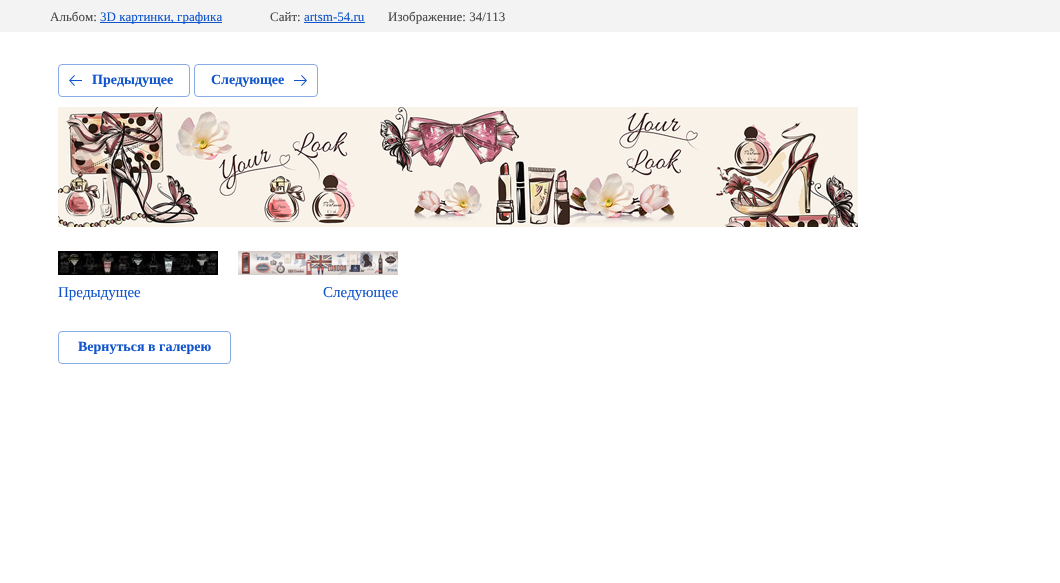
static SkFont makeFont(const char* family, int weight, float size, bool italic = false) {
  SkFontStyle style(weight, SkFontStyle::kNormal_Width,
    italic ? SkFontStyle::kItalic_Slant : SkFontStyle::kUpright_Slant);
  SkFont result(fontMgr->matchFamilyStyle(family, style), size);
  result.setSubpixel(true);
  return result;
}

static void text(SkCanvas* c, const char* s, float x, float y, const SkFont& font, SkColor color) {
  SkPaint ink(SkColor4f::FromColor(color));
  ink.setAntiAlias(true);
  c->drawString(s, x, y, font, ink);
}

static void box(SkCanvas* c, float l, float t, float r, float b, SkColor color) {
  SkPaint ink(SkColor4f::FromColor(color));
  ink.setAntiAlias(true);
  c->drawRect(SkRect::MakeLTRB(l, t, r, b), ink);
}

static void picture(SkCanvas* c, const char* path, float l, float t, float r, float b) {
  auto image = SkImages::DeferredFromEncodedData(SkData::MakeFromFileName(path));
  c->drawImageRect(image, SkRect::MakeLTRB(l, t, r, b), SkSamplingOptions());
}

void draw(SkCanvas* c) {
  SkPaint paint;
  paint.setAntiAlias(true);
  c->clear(0xffffffff);
  box(c, 0, 0, 1060, 32, 0xfff3f3f3);
  SkFont face1 = makeFont("Liberation Serif", 400, 13);
  text(c, "Альбом:", 50, 21, face1, 0xff484848);
  box(c, 100, 22, 222, 23, 0xff1155cc);
  text(c, "3D картинки, графика", 100, 21, face1, 0xff1155cc);
  text(c, "Сайт:", 270, 21, face1, 0xff484848);
  text(c, "artsm-54.ru", 304, 21, face1, 0xff1155cc);
  box(c, 304, 22, 365, 23, 0xff1155cc);
  text(c, "Изображение: 34/113", 388, 21, face1, 0xff484848);
  paint.setStyle(SkPaint::kStroke_Style);
  paint.setStrokeWidth(1);
  paint.setColor(0xff88aae6);
  c->drawRoundRect(SkRect::MakeLTRB(58.5f, 64.5f, 189.5f, 96.5f), 3.5f, 3.5f, paint);
  picture(c, "img_01.png", 69, 75, 82, 86);
  SkFont face2 = makeFont("Liberation Serif", 700, 14);
  text(c, "Предыдущее", 92, 84, face2, 0xff1155cc);
  c->drawRoundRect(SkRect::MakeLTRB(194.5f, 64.5f, 317.5f, 96.5f), 3.5f, 3.5f, paint);
  text(c, "Следующее", 211, 84, face2, 0xff1155cc);
  picture(c, "img_02.png", 294, 75, 307, 86);
  picture(c, "img_03.png", 58, 107, 858, 227);
  picture(c, "img_04.png", 58, 251, 218, 275);
  SkFont face3 = makeFont("Liberation Serif", 400, 15);
  text(c, "Предыдущее", 58, 297, face3, 0xff1155cc);
  picture(c, "img_05.png", 238, 251, 398, 275);
  text(c, "Следующее", 323, 297, face3, 0xff1155cc);
  c->drawRoundRect(SkRect::MakeLTRB(58.5f, 331.5f, 230.5f, 363.5f), 3.5f, 3.5f, paint);
  text(c, "Вернуться в галерею", 78, 351, face2, 0xff1155cc);
}
